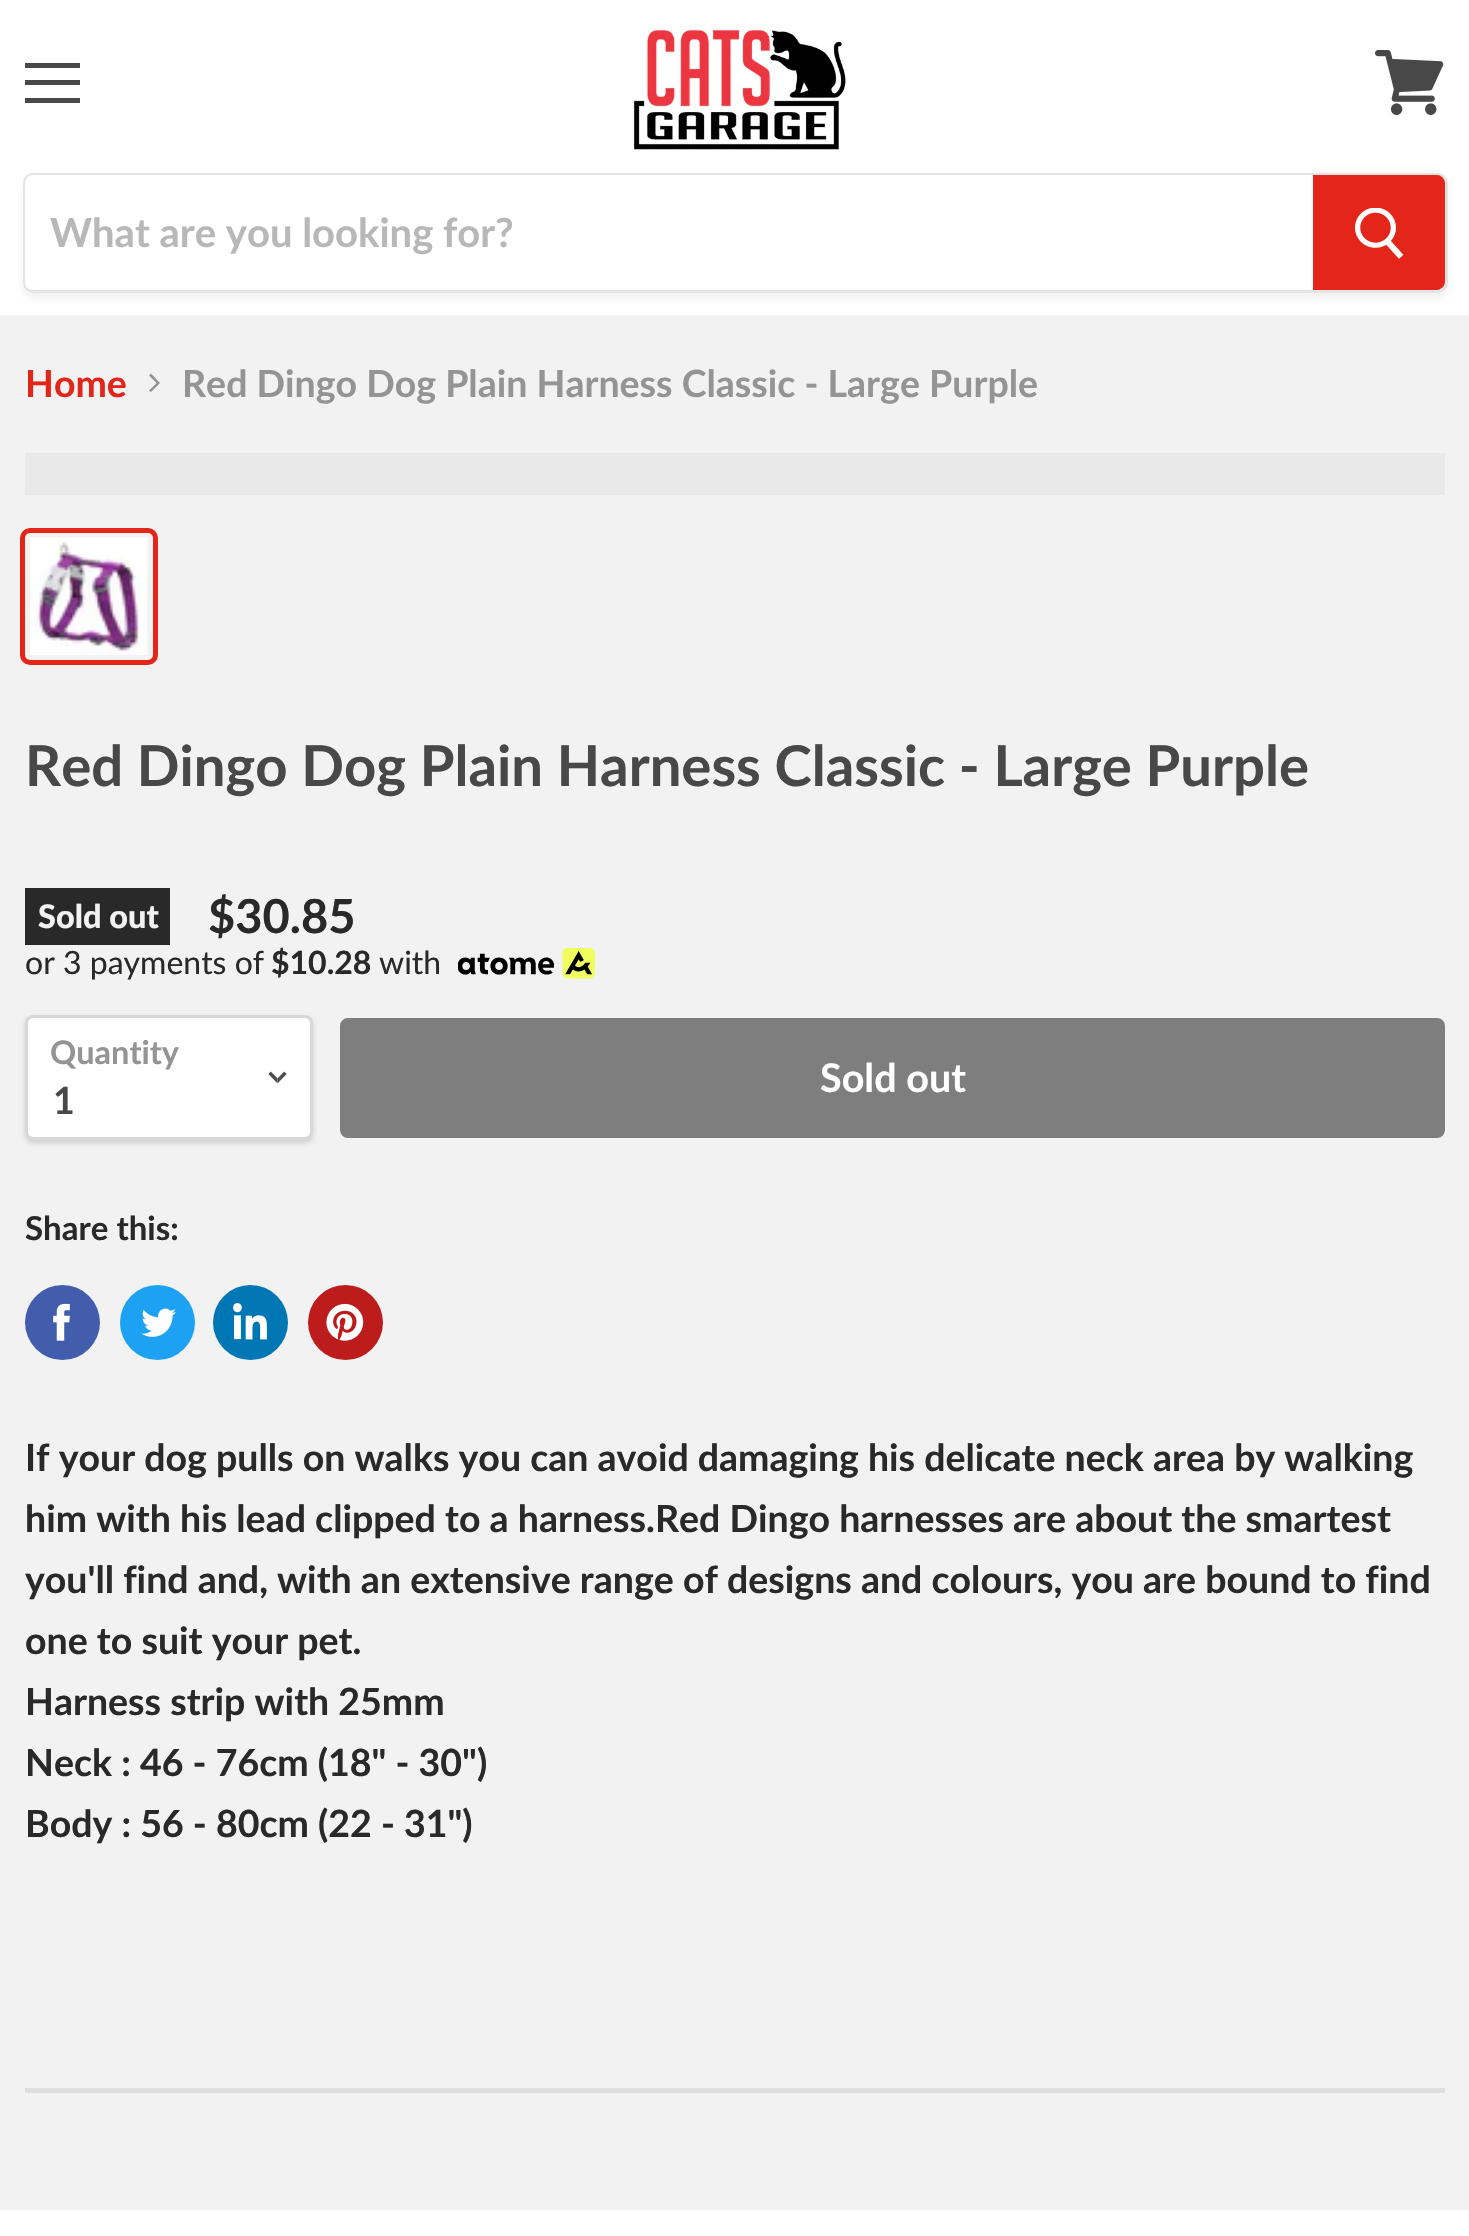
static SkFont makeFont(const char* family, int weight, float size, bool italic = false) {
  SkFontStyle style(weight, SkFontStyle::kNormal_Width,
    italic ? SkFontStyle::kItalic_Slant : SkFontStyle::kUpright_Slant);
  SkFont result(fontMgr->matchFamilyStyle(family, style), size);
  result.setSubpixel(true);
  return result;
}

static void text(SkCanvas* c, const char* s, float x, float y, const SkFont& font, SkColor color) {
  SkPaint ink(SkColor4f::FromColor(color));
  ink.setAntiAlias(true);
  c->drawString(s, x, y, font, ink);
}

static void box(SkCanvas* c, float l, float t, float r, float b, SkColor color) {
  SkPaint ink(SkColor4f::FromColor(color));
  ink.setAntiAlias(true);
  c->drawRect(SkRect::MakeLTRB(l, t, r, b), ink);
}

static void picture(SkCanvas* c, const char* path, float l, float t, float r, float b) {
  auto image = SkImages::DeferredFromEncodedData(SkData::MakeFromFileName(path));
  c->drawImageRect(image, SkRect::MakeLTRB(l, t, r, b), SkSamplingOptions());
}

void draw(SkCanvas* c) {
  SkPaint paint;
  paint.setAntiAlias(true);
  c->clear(0xfff2f2f2);
  box(c, 0, 0, 1469, 315, 0xffffffff);
  box(c, 25, 63, 80, 68, 0xff484848);
  box(c, 25, 80, 80, 85, 0xff484848);
  box(c, 25, 98, 80, 103, 0xff484848);
  picture(c, "img_01.png", 1375, 50, 1444, 115);
  picture(c, "img_02.png", 632, 29, 847, 150);
  c->save();
  c->clipPath(SkPathBuilder(SkPathFillType::kEvenOdd).moveTo(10, 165).lineTo(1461, 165).lineTo(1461, 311).lineTo(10, 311).close().moveTo(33, 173).lineTo(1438, 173).cubicTo(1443.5f, 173, 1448, 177.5f, 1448, 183).lineTo(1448, 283).cubicTo(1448, 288.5f, 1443.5f, 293, 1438, 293).lineTo(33, 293).cubicTo(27.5f, 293, 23, 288.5f, 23, 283).lineTo(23, 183).cubicTo(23, 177.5f, 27.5f, 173, 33, 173).close().detach(), true);
  paint.setColor(0x1c797979);
  paint.setMaskFilter(SkMaskFilter::MakeBlur(kNormal_SkBlurStyle, 4));
  c->drawRoundRect(SkRect::MakeLTRB(23, 178, 1448, 298), 10, 10, paint);
  paint.setMaskFilter(nullptr);
  c->restore();
  paint.setStyle(SkPaint::kStroke_Style);
  paint.setStrokeWidth(3);
  paint.setColor(0x33797979);
  c->drawRoundRect(SkRect::MakeLTRB(24.5f, 174.5f, 1446.5f, 291.5f), 8.5f, 8.5f, paint);
  paint.setStyle(SkPaint::kFill_Style);
  paint.setColor(0xffffffff);
  c->drawPath(SkPathBuilder().moveTo(33, 175).lineTo(1313, 175).lineTo(1313, 290).lineTo(33, 290).cubicTo(28.5f, 290, 25, 286.5f, 25, 282).lineTo(25, 183).cubicTo(25, 178.5f, 28.5f, 175, 33, 175).close().detach(), paint);
  SkFont face1 = makeFont("Lato", 700, 40);
  text(c, "What are you looking for?", 50, 247, face1, 0xffb8b8b8);
  paint.setColor(0xffe32619);
  c->drawPath(SkPathBuilder().moveTo(1314.5f, 176.5f).lineTo(1437, 176.5f).cubicTo(1440.5f, 176.5f, 1443.5f, 179.5f, 1443.5f, 183).lineTo(1443.5f, 282).cubicTo(1443.5f, 285.5f, 1440.5f, 288.5f, 1437, 288.5f).lineTo(1314.5f, 288.5f).close().detach(), paint);
  paint.setStyle(SkPaint::kStroke_Style);
  c->drawPath(SkPathBuilder().moveTo(1314.5f, 176.5f).lineTo(1437, 176.5f).cubicTo(1440.5f, 176.5f, 1443.5f, 179.5f, 1443.5f, 183).lineTo(1443.5f, 282).cubicTo(1443.5f, 285.5f, 1440.5f, 288.5f, 1437, 288.5f).lineTo(1314.5f, 288.5f).close().detach(), paint);
  picture(c, "img_03.png", 1355, 208, 1404, 259);
  SkFont face2 = makeFont("Lato", 700, 37.5f);
  text(c, "Home", 25, 397, face2, 0xffe32619);
  paint.setStyle(SkPaint::kFill_Style);
  paint.setColor(0xff949494);
  c->drawPath(SkPathBuilder(SkPathFillType::kEvenOdd).moveTo(149, 390.5f).lineTo(151, 392).lineTo(160, 383).lineTo(151, 373.5f).lineTo(149, 375.5f).lineTo(156.5f, 383).close().detach(), paint);
  text(c, "Red Dingo Dog Plain Harness Classic - Large Purple", 182, 397, face2, 0xff949494);
  box(c, 25, 453, 1445, 495, 0xffe9e9e9);
  paint.setStyle(SkPaint::kStroke_Style);
  paint.setStrokeWidth(5);
  paint.setColor(0xffe32619);
  c->drawRoundRect(SkRect::MakeLTRB(22.5f, 530.5f, 155.5f, 662.5f), 7.5f, 7.5f, paint);
  picture(c, "img_04.png", 30, 537, 148, 655);
  SkFont face3 = makeFont("Lato", 700, 56.25f);
  text(c, "Red Dingo Dog Plain Harness Classic - Large Purple", 25, 786, face3, 0xff484848);
  box(c, 25, 888, 170, 945, 0xff292929);
  SkFont face4 = makeFont("Lato", 900, 32.5f);
  text(c, "Sold out", 38, 928, face4, 0xfff2f2f2);
  SkFont face5 = makeFont("Lato", 700, 47);
  text(c, "$30.85", 208, 933, face5, 0xff292929);
  SkFont face6 = makeFont("Lato", 400, 32);
  text(c, "or 3 payments of", 25, 974, face6, 0xff292929);
  SkFont face7 = makeFont("Lato", 700, 32);
  text(c, "$10.28", 271, 974, face7, 0xff292929);
  text(c, "with", 379, 974, face6, 0xff292929);
  picture(c, "img_05.png", 458, 948, 595, 979);
  paint.setStyle(SkPaint::kFill_Style);
  paint.setColor(0x26000000);
  paint.setMaskFilter(SkMaskFilter::MakeBlur(kNormal_SkBlurStyle, 2.5f));
  c->drawRoundRect(SkRect::MakeLTRB(25, 1018, 313, 1143), 8, 8, paint);
  paint.setMaskFilter(nullptr);
  paint.setColor(0xffffffff);
  c->drawRoundRect(SkRect::MakeLTRB(26.5f, 1016.5f, 311.5f, 1138.5f), 6.5f, 6.5f, paint);
  paint.setStyle(SkPaint::kStroke_Style);
  paint.setStrokeWidth(3);
  paint.setColor(0xffd8d8d8);
  c->drawRoundRect(SkRect::MakeLTRB(26.5f, 1016.5f, 311.5f, 1138.5f), 6.5f, 6.5f, paint);
  SkFont face8 = makeFont("Lato", 700, 32.5f);
  text(c, "Quantity", 50, 1064, face8, 0xff949494);
  picture(c, "img_06.png", 268, 1071, 287, 1084);
  text(c, "1", 53, 1114, face2, 0xff484848);
  paint.setStyle(SkPaint::kFill_Style);
  paint.setColor(0xff7e7e7e);
  c->drawRoundRect(SkRect::MakeLTRB(341.5f, 1019.5f, 1443.5f, 1136.5f), 6.5f, 6.5f, paint);
  paint.setStyle(SkPaint::kStroke_Style);
  c->drawRoundRect(SkRect::MakeLTRB(341.5f, 1019.5f, 1443.5f, 1136.5f), 6.5f, 6.5f, paint);
  SkFont face9 = makeFont("Lato", 700, 39.5f);
  text(c, "Sold out", 820, 1092, face9, 0xffffffff);
  SkFont face10 = makeFont("Lato", 700, 33);
  text(c, "Share this:", 25, 1240, face10, 0xff292929);
  paint.setStyle(SkPaint::kFill_Style);
  paint.setColor(0xff425dab);
  c->drawCircle(62.5f, 1322.5f, 37.5f, paint);
  picture(c, "img_07.png", 53, 1303, 70, 1341);
  paint.setColor(0xff1da1f2);
  c->drawCircle(157.5f, 1322.5f, 37.5f, paint);
  picture(c, "img_08.png", 141, 1308, 176, 1337);
  paint.setColor(0xff0077b5);
  c->drawCircle(250.5f, 1322.5f, 37.5f, paint);
  picture(c, "img_09.png", 233, 1303, 267, 1340);
  paint.setColor(0xffbd1c1c);
  c->drawCircle(345.5f, 1322.5f, 37.5f, paint);
  picture(c, "img_10.png", 326, 1303, 364, 1341);
  text(c, "If your dog pulls on walks you can avoid damaging his delicate neck area by walking", 25, 1471, face2, 0xff292929);
  text(c, "him with his lead clipped to a harness.Red Dingo harnesses are about the smartest", 25, 1532, face2, 0xff292929);
  text(c, "you'll find and, with an extensive range of designs and colours, you are bound to find", 25, 1593, face2, 0xff292929);
  text(c, "one to suit your pet.", 25, 1654, face2, 0xff292929);
  text(c, "Harness strip with 25mm", 25, 1715, face2, 0xff292929);
  text(c, "Neck : 46 - 76cm (18\" - 30\")", 25, 1776, face2, 0xff292929);
  text(c, "Body : 56 - 80cm (22 - 31\")", 25, 1837, face2, 0xff292929);
  box(c, 25, 2088, 1445, 2093, 0x29797979);
  box(c, 0, 2210, 1469, 2236, 0xffffffff);
}
